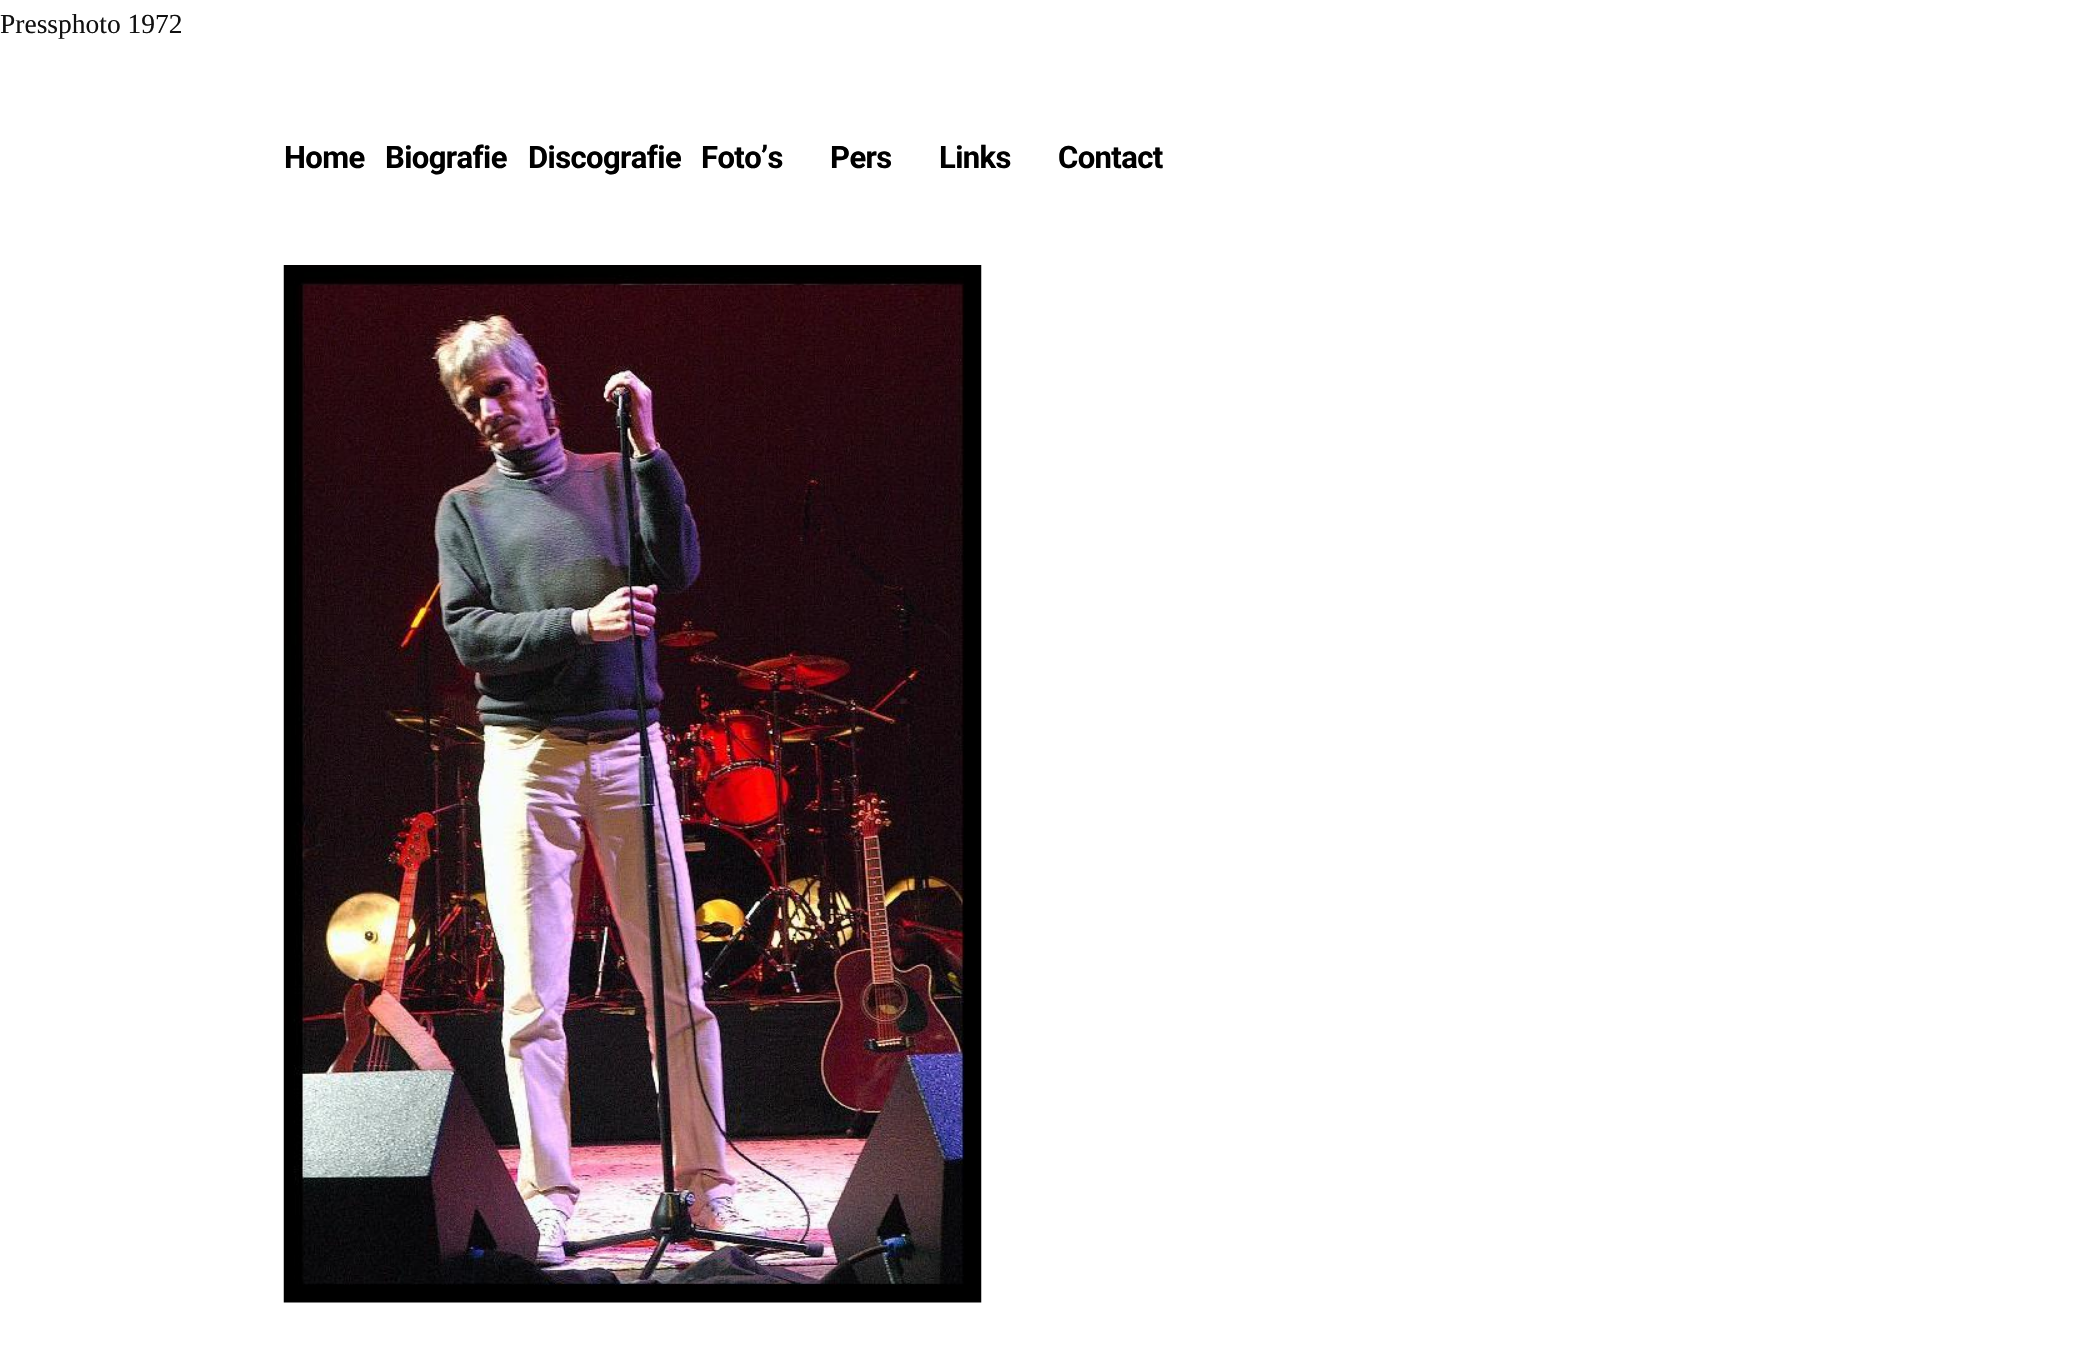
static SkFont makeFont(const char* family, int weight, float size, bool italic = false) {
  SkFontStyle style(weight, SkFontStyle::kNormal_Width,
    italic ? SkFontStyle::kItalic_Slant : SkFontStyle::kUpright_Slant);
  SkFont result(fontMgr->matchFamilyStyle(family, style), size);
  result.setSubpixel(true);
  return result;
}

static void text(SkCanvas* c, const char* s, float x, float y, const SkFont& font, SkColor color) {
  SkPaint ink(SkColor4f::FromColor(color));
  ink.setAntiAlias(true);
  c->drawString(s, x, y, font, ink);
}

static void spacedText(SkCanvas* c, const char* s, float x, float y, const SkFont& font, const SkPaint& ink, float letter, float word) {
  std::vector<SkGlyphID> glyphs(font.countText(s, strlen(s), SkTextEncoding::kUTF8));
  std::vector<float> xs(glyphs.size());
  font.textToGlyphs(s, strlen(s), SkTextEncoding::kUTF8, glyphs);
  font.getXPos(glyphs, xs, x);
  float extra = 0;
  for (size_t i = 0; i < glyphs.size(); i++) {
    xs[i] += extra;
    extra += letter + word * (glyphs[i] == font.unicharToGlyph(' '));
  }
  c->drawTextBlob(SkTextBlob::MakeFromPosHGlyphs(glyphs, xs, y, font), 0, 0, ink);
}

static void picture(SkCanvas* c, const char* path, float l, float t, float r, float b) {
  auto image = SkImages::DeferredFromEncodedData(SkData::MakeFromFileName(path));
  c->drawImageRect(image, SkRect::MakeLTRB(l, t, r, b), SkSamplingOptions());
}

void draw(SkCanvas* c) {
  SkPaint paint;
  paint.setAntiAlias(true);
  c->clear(0xffffffff);
  SkFont face1 = makeFont("Liberation Serif", 400, 27.5f);
  text(c, "Pressphoto 1972", 0, 33, face1, 0xff111111);
  SkFont face2 = makeFont("Roboto", 700, 31);
  paint.setColor(0xff000000);
  spacedText(c, "Home", 284, 168, face2, paint, -0.6f, 0);
  spacedText(c, "Biografie", 385, 168, face2, paint, -0.6f, 0);
  spacedText(c, "Discografie", 528, 168, face2, paint, -0.6f, 0);
  spacedText(c, "Foto’s", 701, 168, face2, paint, -0.6f, 0);
  spacedText(c, "Pers", 830, 168, face2, paint, -0.6f, 0);
  spacedText(c, "Links", 939, 168, face2, paint, -0.6f, 0);
  spacedText(c, "Contact", 1058, 168, face2, paint, -0.6f, 0);
  picture(c, "img_01.png", 283, 265, 982, 1303);
}
